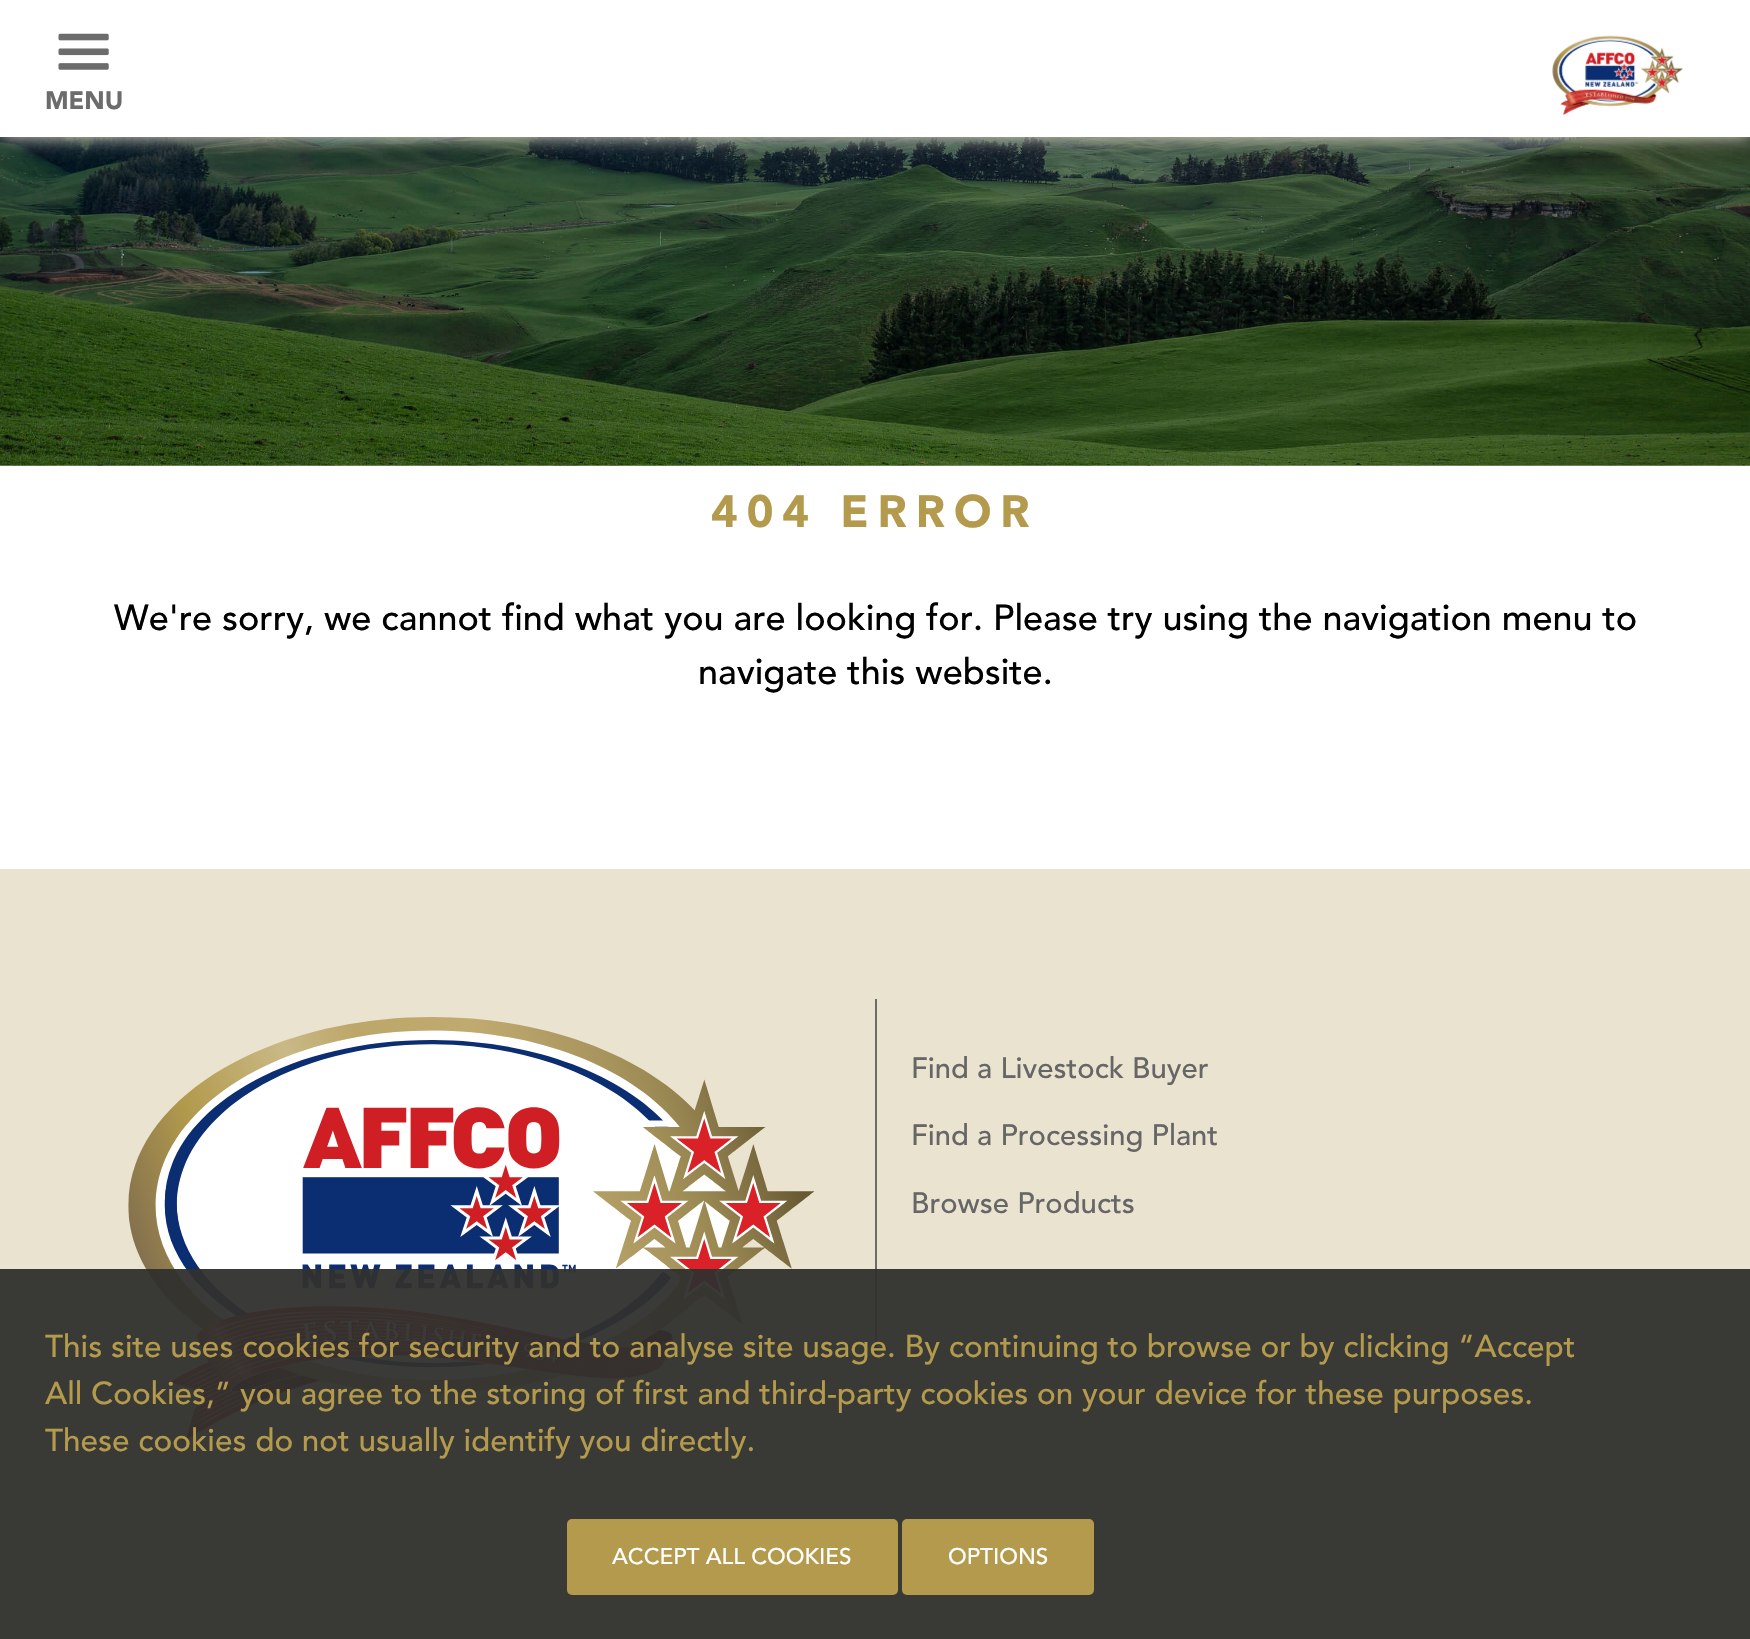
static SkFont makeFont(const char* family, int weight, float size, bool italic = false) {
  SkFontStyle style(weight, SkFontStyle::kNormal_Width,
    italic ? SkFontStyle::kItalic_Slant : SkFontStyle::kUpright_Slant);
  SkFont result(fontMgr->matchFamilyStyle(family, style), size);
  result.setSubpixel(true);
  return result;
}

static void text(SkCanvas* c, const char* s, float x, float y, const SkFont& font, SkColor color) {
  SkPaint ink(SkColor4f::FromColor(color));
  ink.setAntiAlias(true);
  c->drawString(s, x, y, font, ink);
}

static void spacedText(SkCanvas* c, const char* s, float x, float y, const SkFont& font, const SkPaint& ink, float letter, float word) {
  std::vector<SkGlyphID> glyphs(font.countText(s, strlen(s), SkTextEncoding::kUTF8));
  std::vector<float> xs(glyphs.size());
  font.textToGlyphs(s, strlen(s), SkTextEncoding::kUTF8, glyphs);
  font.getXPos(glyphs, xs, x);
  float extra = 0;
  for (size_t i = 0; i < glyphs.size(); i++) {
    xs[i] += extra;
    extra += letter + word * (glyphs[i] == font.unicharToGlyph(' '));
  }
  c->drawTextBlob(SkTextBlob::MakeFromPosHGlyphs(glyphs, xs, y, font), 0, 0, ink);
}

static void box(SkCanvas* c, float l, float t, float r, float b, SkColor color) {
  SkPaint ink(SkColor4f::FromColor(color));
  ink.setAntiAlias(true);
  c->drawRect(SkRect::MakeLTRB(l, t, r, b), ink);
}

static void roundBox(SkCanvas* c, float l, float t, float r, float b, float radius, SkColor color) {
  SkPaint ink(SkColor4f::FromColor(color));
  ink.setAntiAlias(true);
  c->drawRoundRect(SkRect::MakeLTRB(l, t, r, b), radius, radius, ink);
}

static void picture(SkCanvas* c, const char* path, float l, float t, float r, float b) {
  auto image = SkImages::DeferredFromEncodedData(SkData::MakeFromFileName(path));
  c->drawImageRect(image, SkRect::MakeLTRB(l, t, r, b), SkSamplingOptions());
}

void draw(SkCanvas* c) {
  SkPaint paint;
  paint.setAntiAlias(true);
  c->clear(0xffffffff);
  picture(c, "img_03.png", 0, 137, 1750, 466);
  paint.setColor(0xffeae3d0);
  paint.setMaskFilter(SkMaskFilter::MakeBlur(kNormal_SkBlurStyle, 9));
  c->drawRect(SkRect::MakeLTRB(0, 0, 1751, 137), paint);
  paint.setMaskFilter(nullptr);
  box(c, 0, 0, 1750, 137, 0xffffffff);
  picture(c, "img_01.png", 58, 33, 109, 70);
  SkFont face1 = makeFont("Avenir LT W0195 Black", 900, 25);
  text(c, "MENU", 45, 109, face1, 0xff6c6c6c);
  picture(c, "img_02.png", 1552, 35, 1683, 115);
  SkFont face2 = makeFont("Avenir LT W0195 Black", 900, 45);
  paint.setColor(0xffb39a4c);
  spacedText(c, "404 ERROR", 711, 527, face2, paint, 9, 0);
  SkFont face3 = makeFont("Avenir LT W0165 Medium", 500, 36);
  text(c, "We're sorry, we cannot find what you are looking for. Please try using the navigation menu to", 114, 630, face3, 0xff000000);
  text(c, "navigate this website.", 698, 684, face3, 0xff000000);
  box(c, 0, 869, 1750, 1639, 0xffeae3d0);
  picture(c, "img_04.png", 128, 1017, 815, 1440);
  box(c, 875, 999, 877, 1359, 0xff6c6c6c);
  SkFont face4 = makeFont("Avenir LT W0165 Medium", 500, 29.25f);
  text(c, "Find a Livestock Buyer", 911, 1078, face4, 0xff666666);
  text(c, "Find a Processing Plant", 911, 1145, face4, 0xff666666);
  text(c, "Browse Products", 911, 1213, face4, 0xff666666);
  box(c, 0, 1269, 1750, 1639, 0xf22f2f2d);
  SkFont face5 = makeFont("Avenir LT W0165 Medium", 500, 31.5f);
  text(c, "This site uses cookies for security and to analyse site usage. By continuing to browse or by clicking “Accept", 45, 1357, face5, 0xffb39a4c);
  text(c, "All Cookies,” you agree to the storing of first and third-party cookies on your device for these purposes.", 45, 1404, face5, 0xffb39a4c);
  text(c, "These cookies do not usually identify you directly.", 45, 1451, face5, 0xffb39a4c);
  roundBox(c, 567, 1519, 898, 1595, 5, 0xffb39a4c);
  SkFont face6 = makeFont("Avenir LT W0165 Medium", 500, 22.5f);
  text(c, "ACCEPT ALL COOKIES", 612, 1564, face6, 0xffffffff);
  roundBox(c, 902, 1519, 1094, 1595, 5, 0xffb39a4c);
  text(c, "OPTIONS", 948, 1564, face6, 0xffffffff);
}
